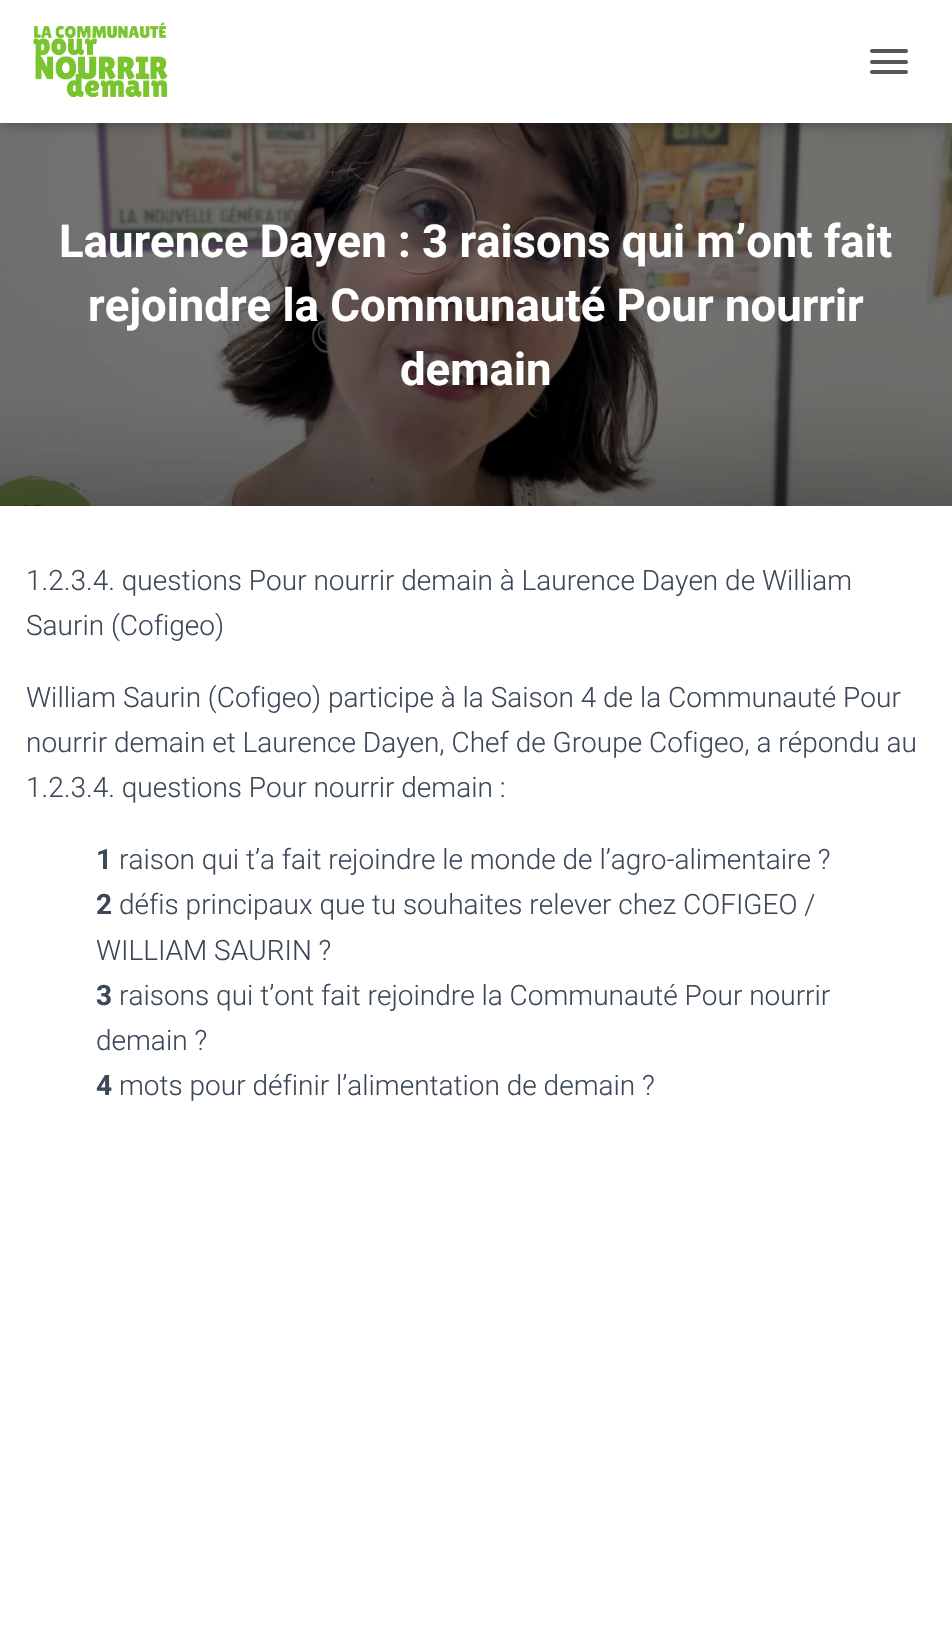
static SkFont makeFont(const char* family, int weight, float size, bool italic = false) {
  SkFontStyle style(weight, SkFontStyle::kNormal_Width,
    italic ? SkFontStyle::kItalic_Slant : SkFontStyle::kUpright_Slant);
  SkFont result(fontMgr->matchFamilyStyle(family, style), size);
  result.setSubpixel(true);
  return result;
}

static void text(SkCanvas* c, const char* s, float x, float y, const SkFont& font, SkColor color) {
  SkPaint ink(SkColor4f::FromColor(color));
  ink.setAntiAlias(true);
  c->drawString(s, x, y, font, ink);
}

static void box(SkCanvas* c, float l, float t, float r, float b, SkColor color) {
  SkPaint ink(SkColor4f::FromColor(color));
  ink.setAntiAlias(true);
  c->drawRect(SkRect::MakeLTRB(l, t, r, b), ink);
}

static void roundBox(SkCanvas* c, float l, float t, float r, float b, float radius, SkColor color) {
  SkPaint ink(SkColor4f::FromColor(color));
  ink.setAntiAlias(true);
  c->drawRoundRect(SkRect::MakeLTRB(l, t, r, b), radius, radius, ink);
}

static void picture(SkCanvas* c, const char* path, float l, float t, float r, float b) {
  auto image = SkImages::DeferredFromEncodedData(SkData::MakeFromFileName(path));
  c->drawImageRect(image, SkRect::MakeLTRB(l, t, r, b), SkSamplingOptions());
}

void draw(SkCanvas* c) {
  SkPaint paint;
  paint.setAntiAlias(true);
  c->clear(0xffffffff);
  picture(c, "img_02.png", 0, 123, 952, 506);
  paint.setColor(0x1a000000);
  paint.setMaskFilter(SkMaskFilter::MakeBlur(kNormal_SkBlurStyle, 4.5f));
  c->drawRect(SkRect::MakeLTRB(4, 11, 949, 126), paint);
  paint.setMaskFilter(nullptr);
  paint.setColor(0x1f000000);
  paint.setMaskFilter(SkMaskFilter::MakeBlur(kNormal_SkBlurStyle, 9));
  c->drawRect(SkRect::MakeLTRB(0, 2, 952, 124), paint);
  paint.setMaskFilter(nullptr);
  paint.setColor(0x6b000000);
  paint.setMaskFilter(SkMaskFilter::MakeBlur(kNormal_SkBlurStyle, 9));
  c->drawRect(SkRect::MakeLTRB(11, 12, 942, 114), paint);
  paint.setMaskFilter(nullptr);
  box(c, 0, 0, 952, 123, 0xffffffff);
  picture(c, "img_01.png", 33, 22, 168, 98);
  roundBox(c, 870, 49, 908, 53, 2, 0xff555555);
  roundBox(c, 870, 60, 908, 64, 2, 0xff555555);
  roundBox(c, 870, 70, 908, 74, 2, 0xff555555);
  SkFont face1 = makeFont("Roboto", 700, 45.5f);
  text(c, "Laurence Dayen : 3 raisons qui m’ont fait", 59, 257, face1, 0xffffffff);
  text(c, "rejoindre la Communauté Pour nourrir", 88, 321, face1, 0xffffffff);
  text(c, "demain", 400, 385, face1, 0xffffffff);
  paint.setColor(0x1f000000);
  paint.setMaskFilter(SkMaskFilter::MakeBlur(kNormal_SkBlurStyle, 26));
  c->drawRect(SkRect::MakeLTRB(-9, 508, 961, 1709), paint);
  paint.setMaskFilter(nullptr);
  box(c, 0, 506, 952, 1631, 0xffffffff);
  SkFont face2 = makeFont("Roboto", 300, 28);
  text(c, "1.2.3.4. questions Pour nourrir demain à Laurence Dayen de William", 26, 590, face2, 0xff3c4858);
  text(c, "Saurin (Cofigeo)", 26, 635, face2, 0xff3c4858);
  text(c, "William Saurin (Cofigeo) participe à la Saison 4 de la Communauté Pour", 26, 707, face2, 0xff3c4858);
  text(c, "nourrir demain et Laurence Dayen, Chef de Groupe Cofigeo, a répondu au", 26, 752, face2, 0xff3c4858);
  text(c, "1.2.3.4. questions Pour nourrir demain :", 26, 797, face2, 0xff3c4858);
  SkFont face3 = makeFont("Roboto", 700, 28);
  text(c, "1", 96, 869, face3, 0xff3c4858);
  text(c, "raison qui t’a fait rejoindre le monde de l’agro-alimentaire ?", 119, 869, face2, 0xff3c4858);
  text(c, "2", 96, 914, face3, 0xff3c4858);
  text(c, "défis principaux que tu souhaites relever chez COFIGEO /", 119, 914, face2, 0xff3c4858);
  text(c, "WILLIAM SAURIN ?", 96, 960, face2, 0xff3c4858);
  text(c, "3", 96, 1005, face3, 0xff3c4858);
  text(c, "raisons qui t’ont fait rejoindre la Communauté Pour nourrir", 119, 1005, face2, 0xff3c4858);
  text(c, "demain ?", 96, 1050, face2, 0xff3c4858);
  text(c, "4", 96, 1095, face3, 0xff3c4858);
  text(c, "mots pour définir l’alimentation de demain ?", 119, 1095, face2, 0xff3c4858);
}
